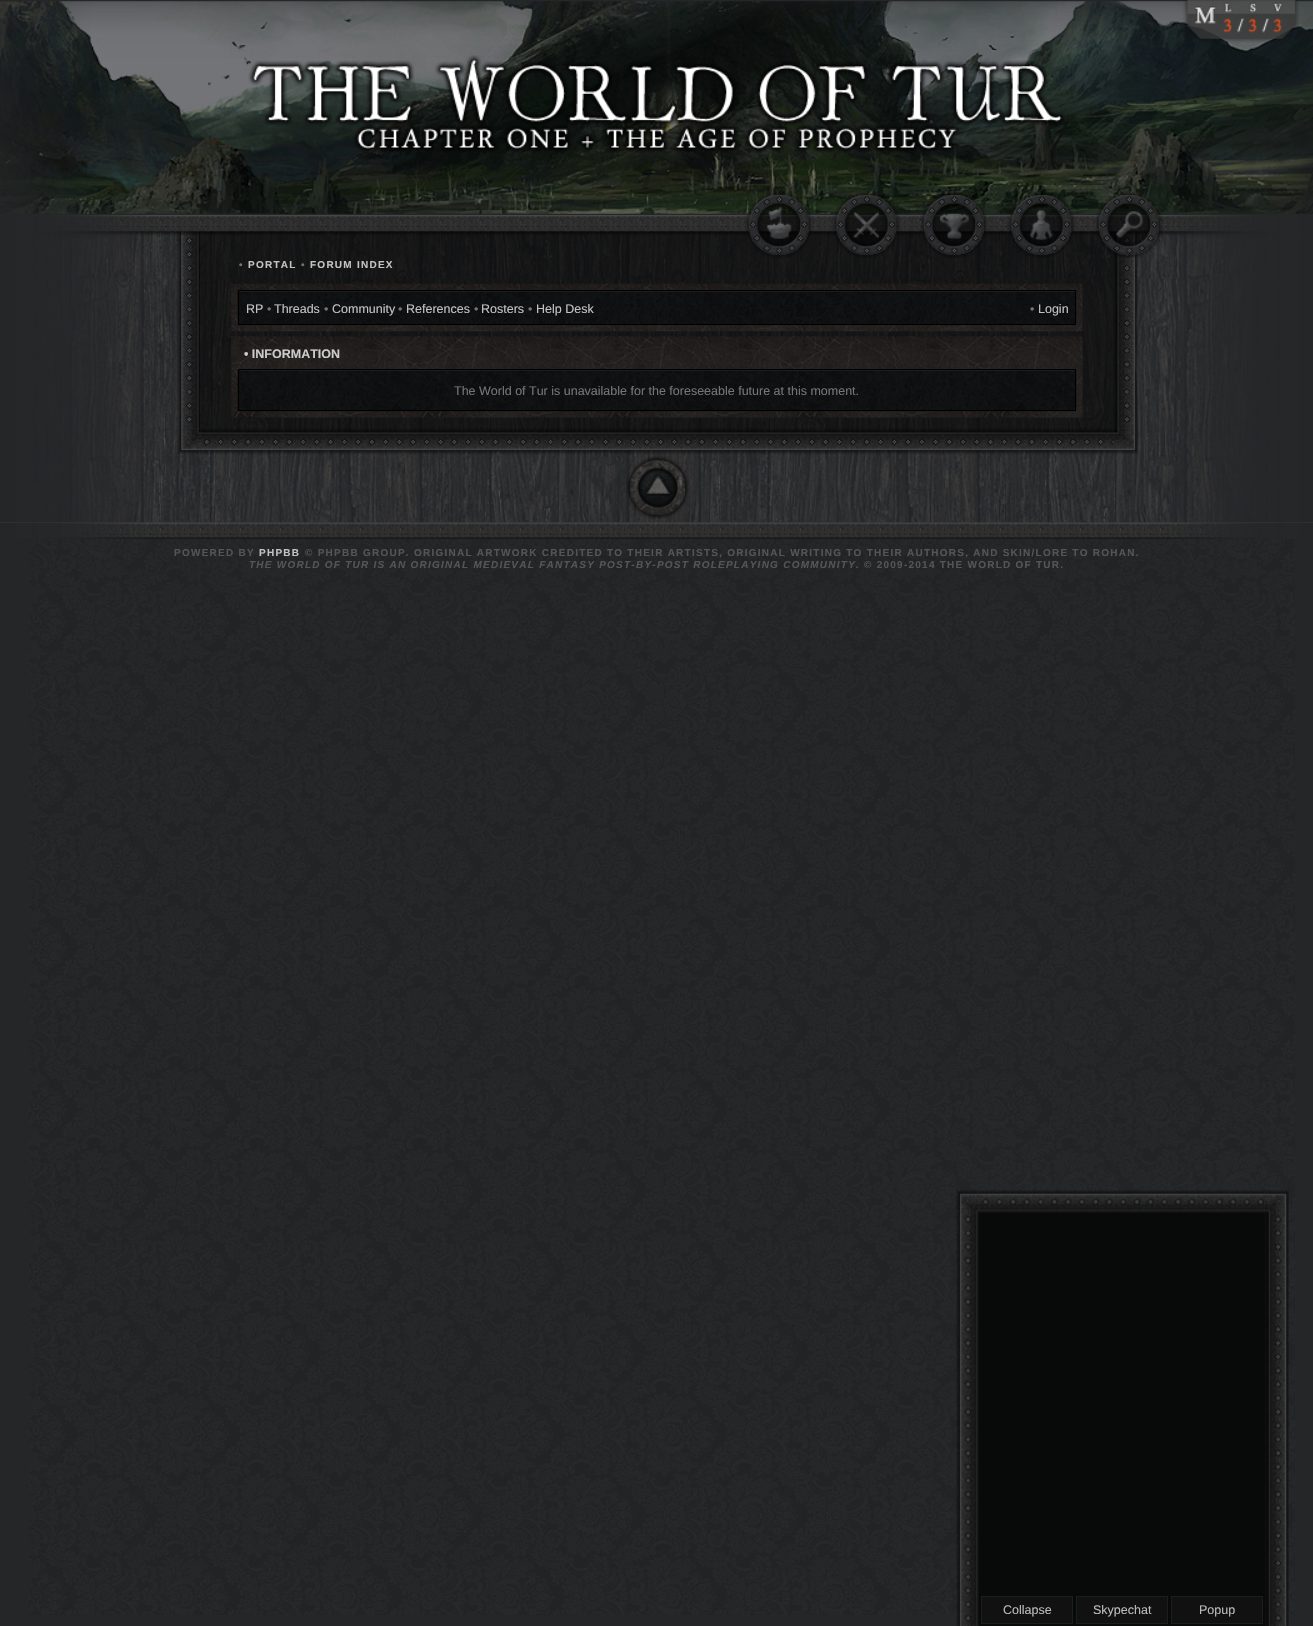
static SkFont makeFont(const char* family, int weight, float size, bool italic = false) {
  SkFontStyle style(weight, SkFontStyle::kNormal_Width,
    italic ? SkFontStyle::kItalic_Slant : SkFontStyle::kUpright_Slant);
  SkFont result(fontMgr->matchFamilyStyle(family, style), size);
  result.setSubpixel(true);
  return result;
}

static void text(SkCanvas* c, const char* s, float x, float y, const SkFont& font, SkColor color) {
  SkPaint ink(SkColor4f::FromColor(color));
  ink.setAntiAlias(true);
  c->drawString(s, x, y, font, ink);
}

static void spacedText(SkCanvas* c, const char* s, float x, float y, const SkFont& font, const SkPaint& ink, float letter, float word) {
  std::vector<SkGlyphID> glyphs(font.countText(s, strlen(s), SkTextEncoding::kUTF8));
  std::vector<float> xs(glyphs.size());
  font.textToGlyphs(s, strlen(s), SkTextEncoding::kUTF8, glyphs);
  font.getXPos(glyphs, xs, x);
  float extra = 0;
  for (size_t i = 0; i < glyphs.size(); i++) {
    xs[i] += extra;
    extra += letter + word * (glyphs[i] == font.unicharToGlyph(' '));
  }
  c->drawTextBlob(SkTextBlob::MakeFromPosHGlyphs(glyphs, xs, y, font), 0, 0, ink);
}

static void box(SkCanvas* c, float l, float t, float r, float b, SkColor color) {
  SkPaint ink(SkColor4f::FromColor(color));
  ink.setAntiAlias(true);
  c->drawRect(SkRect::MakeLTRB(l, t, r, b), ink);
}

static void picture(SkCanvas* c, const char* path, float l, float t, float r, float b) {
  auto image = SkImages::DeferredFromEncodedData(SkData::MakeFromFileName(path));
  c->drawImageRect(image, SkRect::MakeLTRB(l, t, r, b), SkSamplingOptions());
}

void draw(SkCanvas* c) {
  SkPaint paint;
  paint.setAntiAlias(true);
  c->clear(0xff252628);
  picture(c, "img_01.png", 29, 522, 1295, 1615);
  picture(c, "img_03.png", 29, 14, 1295, 210);
  picture(c, "img_04.png", 0, 1, 1313, 214);
  picture(c, "img_02.png", 1183, 0, 1299, 43);
  picture(c, "img_05.png", 248, 55, 1065, 153);
  picture(c, "img_10.png", 0, 231, 1313, 523);
  picture(c, "img_11.png", 0, 231, 145, 523);
  picture(c, "img_12.png", 177, 231, 200, 429);
  box(c, 200, 231, 1114, 429, 0x8c000000);
  picture(c, "img_17.png", 1113, 231, 1138, 429);
  picture(c, "img_22.png", 1174, 231, 1313, 523);
  picture(c, "img_06.png", 24, 215, 1290, 236);
  picture(c, "img_07.png", 0, 215, 147, 239);
  picture(c, "img_08.png", 1167, 215, 1313, 239);
  picture(c, "img_09.png", 745, 191, 1163, 259);
  SkFont face1 = makeFont("Liberation Sans", 700, 10);
  paint.setColor(0xff757575);
  spacedText(c, "•", 239, 268, face1, paint, 1.25f, 0);
  paint.setColor(0xffc2c2c2);
  spacedText(c, "PORTAL", 248, 268, face1, paint, 1.25f, 0);
  paint.setColor(0xff757575);
  spacedText(c, "•", 301, 268, face1, paint, 1.25f, 0);
  paint.setColor(0xffc2c2c2);
  spacedText(c, "FORUM INDEX", 310, 268, face1, paint, 1.25f, 0);
  picture(c, "img_13.png", 231, 283, 1083, 332);
  box(c, 238, 290, 1076, 291, 0xff000000);
  picture(c, "img_14.png", 237, 291, 1077, 325);
  box(c, 238, 291, 1076, 292, 0xff1c1d1e);
  box(c, 1075, 291, 1076, 325, 0xff000000);
  box(c, 238, 324, 1076, 325, 0xff000000);
  box(c, 238, 291, 239, 325, 0xff000000);
  SkFont face2 = makeFont("Liberation Sans", 400, 12.5f);
  text(c, "RP", 246, 313, face2, 0xffc2c2c2);
  text(c, "•", 267, 313, face2, 0xff757575);
  text(c, "Threads", 274, 313, face2, 0xffc2c2c2);
  text(c, "•", 324, 313, face2, 0xff757575);
  text(c, "Community", 332, 313, face2, 0xffc2c2c2);
  text(c, "•", 398, 313, face2, 0xff757575);
  text(c, "References", 406, 313, face2, 0xffc2c2c2);
  text(c, "•", 474, 313, face2, 0xff757575);
  text(c, "Rosters", 481, 313, face2, 0xffc2c2c2);
  text(c, "•", 528, 313, face2, 0xff757575);
  text(c, "Help Desk", 536, 313, face2, 0xffc2c2c2);
  text(c, "•", 1030, 313, face2, 0xff757575);
  text(c, "Login", 1038, 313, face2, 0xffc2c2c2);
  picture(c, "img_15.png", 231, 336, 1083, 418);
  box(c, 238, 369, 1076, 370, 0xff000000);
  SkFont face3 = makeFont("Liberation Sans", 700, 12.5f);
  text(c, "• INFORMATION", 244, 358, face3, 0xffcccccc);
  picture(c, "img_16.png", 237, 370, 1077, 412);
  box(c, 238, 370, 1076, 371, 0xff1c1d1e);
  box(c, 1075, 370, 1076, 411, 0xff000000);
  box(c, 238, 410, 1076, 411, 0xff000000);
  box(c, 238, 370, 239, 411, 0xff000000);
  text(c, "The World of Tur is unavailable for the foreseeable future at this moment.", 454, 395, face2, 0xff757575);
  picture(c, "img_18.png", 177, 429, 200, 454);
  picture(c, "img_19.png", 200, 428, 1114, 455);
  picture(c, "img_20.png", 1113, 428, 1138, 454);
  picture(c, "img_21.png", 626, 456, 689, 519);
  picture(c, "img_23.png", 0, 522, 1313, 539);
  picture(c, "img_24.png", 0, 522, 145, 539);
  picture(c, "img_25.png", 1170, 522, 1313, 539);
  paint.setColor(0xff555555);
  spacedText(c, "POWERED BY", 174, 556, face1, paint, 1.25f, 0);
  paint.setColor(0xffc2c2c2);
  spacedText(c, "PHPBB", 259, 556, face1, paint, 1.25f, 0);
  paint.setColor(0xff555555);
  spacedText(c, "© PHPBB GROUP. ORIGINAL ARTWORK CREDITED TO THEIR ARTISTS, ORIGINAL WRITING TO THEIR AUTHORS, AND SKIN/LORE TO ROHAN.", 305, 556, face1, paint, 1.25f, 0);
  SkFont face4 = makeFont("Liberation Sans", 700, 10, true);
  spacedText(c, "THE WORLD OF TUR IS AN ORIGINAL MEDIEVAL FANTASY POST-BY-POST ROLEPLAYING COMMUNITY.", 249, 568, face4, paint, 1.25f, 0);
  spacedText(c, "© 2009-2014 THE WORLD OF TUR.", 864, 568, face1, paint, 1.25f, 0);
  picture(c, "img_26.png", 956, 1190, 979, 1213);
  picture(c, "img_27.png", 979, 1190, 1266, 1213);
  picture(c, "img_28.png", 1265, 1190, 1289, 1213);
  picture(c, "img_29.png", 956, 1212, 979, 1626);
  box(c, 979, 1213, 1265, 1626, 0xff111212);
  picture(c, "img_30.png", 979, 1212, 1266, 1626);
  paint.setColor(0xff111111);
  c->drawRect(SkRect::MakeLTRB(981.5f, 1596.5f, 1072.5f, 1623.5f), paint);
  paint.setStyle(SkPaint::kStroke_Style);
  paint.setStrokeWidth(1);
  paint.setColor(0xff1c1d1e);
  c->drawRect(SkRect::MakeLTRB(981.5f, 1596.5f, 1072.5f, 1623.5f), paint);
  text(c, "Collapse", 1003, 1614, face2, 0xffbbbbbb);
  paint.setStyle(SkPaint::kFill_Style);
  paint.setColor(0xff111111);
  c->drawRect(SkRect::MakeLTRB(1076.5f, 1596.5f, 1167.5f, 1623.5f), paint);
  paint.setStyle(SkPaint::kStroke_Style);
  paint.setColor(0xff1c1d1e);
  c->drawRect(SkRect::MakeLTRB(1076.5f, 1596.5f, 1167.5f, 1623.5f), paint);
  text(c, "Skypechat", 1093, 1614, face2, 0xffbbbbbb);
  paint.setStyle(SkPaint::kFill_Style);
  paint.setColor(0xff111111);
  c->drawRect(SkRect::MakeLTRB(1171.5f, 1596.5f, 1262.5f, 1623.5f), paint);
  paint.setStyle(SkPaint::kStroke_Style);
  paint.setColor(0xff1c1d1e);
  c->drawRect(SkRect::MakeLTRB(1171.5f, 1596.5f, 1262.5f, 1623.5f), paint);
  text(c, "Popup", 1199, 1614, face2, 0xffbbbbbb);
  picture(c, "img_31.png", 1265, 1212, 1289, 1626);
}
